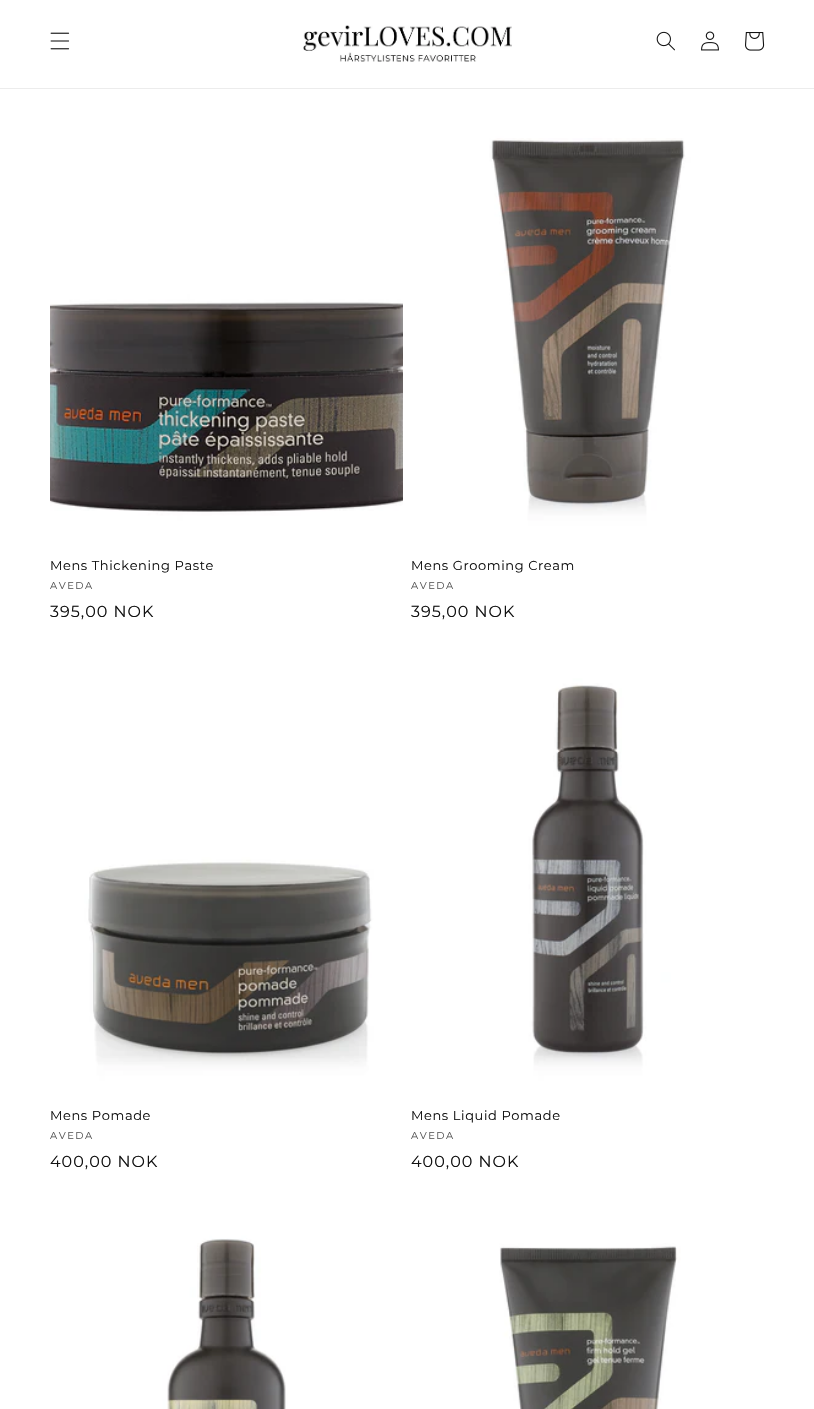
static SkFont makeFont(const char* family, int weight, float size, bool italic = false) {
  SkFontStyle style(weight, SkFontStyle::kNormal_Width,
    italic ? SkFontStyle::kItalic_Slant : SkFontStyle::kUpright_Slant);
  SkFont result(fontMgr->matchFamilyStyle(family, style), size);
  result.setSubpixel(true);
  return result;
}

static void spacedText(SkCanvas* c, const char* s, float x, float y, const SkFont& font, const SkPaint& ink, float letter, float word) {
  std::vector<SkGlyphID> glyphs(font.countText(s, strlen(s), SkTextEncoding::kUTF8));
  std::vector<float> xs(glyphs.size());
  font.textToGlyphs(s, strlen(s), SkTextEncoding::kUTF8, glyphs);
  font.getXPos(glyphs, xs, x);
  float extra = 0;
  for (size_t i = 0; i < glyphs.size(); i++) {
    xs[i] += extra;
    extra += letter + word * (glyphs[i] == font.unicharToGlyph(' '));
  }
  c->drawTextBlob(SkTextBlob::MakeFromPosHGlyphs(glyphs, xs, y, font), 0, 0, ink);
}

static void box(SkCanvas* c, float l, float t, float r, float b, SkColor color) {
  SkPaint ink(SkColor4f::FromColor(color));
  ink.setAntiAlias(true);
  c->drawRect(SkRect::MakeLTRB(l, t, r, b), ink);
}

static void picture(SkCanvas* c, const char* path, float l, float t, float r, float b) {
  auto image = SkImages::DeferredFromEncodedData(SkData::MakeFromFileName(path));
  c->drawImageRect(image, SkRect::MakeLTRB(l, t, r, b), SkSamplingOptions());
}

void draw(SkCanvas* c) {
  SkPaint paint;
  paint.setAntiAlias(true);
  c->clear(0xffffffff);
  box(c, 0, 88, 814, 89, 0xffececec);
  picture(c, "img_01.png", 50, 32, 70, 50);
  picture(c, "img_02.png", 303, 25, 512, 62);
  picture(c, "img_03.png", 656, 31, 675, 51);
  picture(c, "img_04.png", 701, 31, 719, 51);
  picture(c, "img_05.png", 745, 32, 765, 51);
  picture(c, "img_06.png", 50, 99, 403, 540);
  SkFont face1 = makeFont("Montserrat", 100, 13);
  paint.setColor(0xff121212);
  spacedText(c, "Mens Thickening Paste", 50, 570, face1, paint, 0.6f, 0);
  SkFont face2 = makeFont("Montserrat", 100, 10);
  paint.setColor(0xff595959);
  spacedText(c, "AVEDA", 50, 589, face2, paint, 1.5f, 0);
  SkFont face3 = makeFont("Montserrat", 100, 16);
  paint.setColor(0xff121212);
  spacedText(c, "395,00 NOK", 50, 617, face3, paint, 1, 0);
  picture(c, "img_07.png", 411, 99, 764, 540);
  spacedText(c, "Mens Grooming Cream", 411, 570, face1, paint, 0.6f, 0);
  paint.setColor(0xff595959);
  spacedText(c, "AVEDA", 411, 589, face2, paint, 1.5f, 0);
  paint.setColor(0xff121212);
  spacedText(c, "395,00 NOK", 411, 617, face3, paint, 1, 0);
  picture(c, "img_08.png", 50, 649, 403, 1090);
  spacedText(c, "Mens Pomade", 50, 1120, face1, paint, 0.6f, 0);
  paint.setColor(0xff595959);
  spacedText(c, "AVEDA", 50, 1139, face2, paint, 1.5f, 0);
  paint.setColor(0xff121212);
  spacedText(c, "400,00 NOK", 50, 1167, face3, paint, 1, 0);
  picture(c, "img_09.png", 411, 649, 764, 1090);
  spacedText(c, "Mens Liquid Pomade", 411, 1120, face1, paint, 0.6f, 0);
  paint.setColor(0xff595959);
  spacedText(c, "AVEDA", 411, 1139, face2, paint, 1.5f, 0);
  paint.setColor(0xff121212);
  spacedText(c, "400,00 NOK", 411, 1167, face3, paint, 1, 0);
  picture(c, "img_10.png", 50, 1199, 403, 1409);
  picture(c, "img_11.png", 411, 1199, 764, 1409);
}
